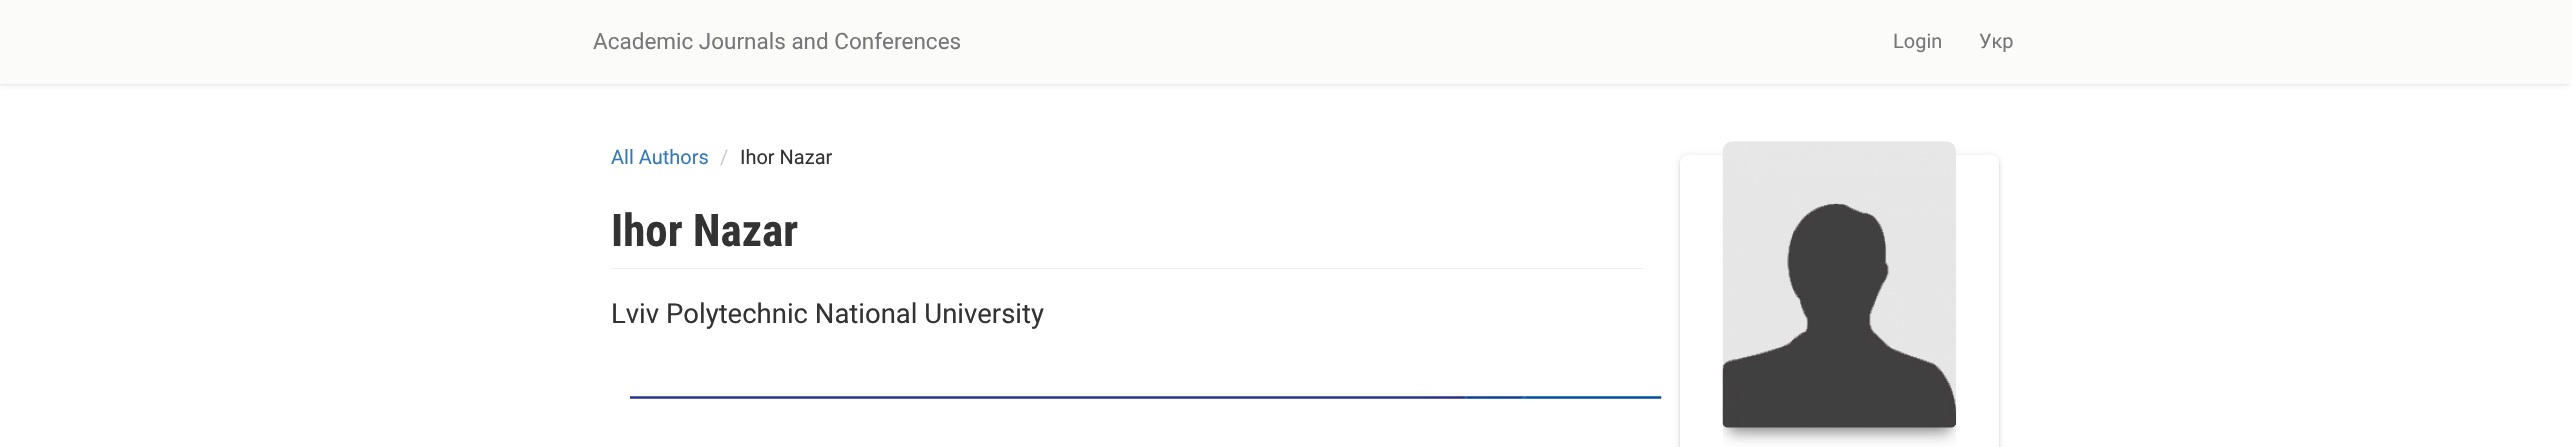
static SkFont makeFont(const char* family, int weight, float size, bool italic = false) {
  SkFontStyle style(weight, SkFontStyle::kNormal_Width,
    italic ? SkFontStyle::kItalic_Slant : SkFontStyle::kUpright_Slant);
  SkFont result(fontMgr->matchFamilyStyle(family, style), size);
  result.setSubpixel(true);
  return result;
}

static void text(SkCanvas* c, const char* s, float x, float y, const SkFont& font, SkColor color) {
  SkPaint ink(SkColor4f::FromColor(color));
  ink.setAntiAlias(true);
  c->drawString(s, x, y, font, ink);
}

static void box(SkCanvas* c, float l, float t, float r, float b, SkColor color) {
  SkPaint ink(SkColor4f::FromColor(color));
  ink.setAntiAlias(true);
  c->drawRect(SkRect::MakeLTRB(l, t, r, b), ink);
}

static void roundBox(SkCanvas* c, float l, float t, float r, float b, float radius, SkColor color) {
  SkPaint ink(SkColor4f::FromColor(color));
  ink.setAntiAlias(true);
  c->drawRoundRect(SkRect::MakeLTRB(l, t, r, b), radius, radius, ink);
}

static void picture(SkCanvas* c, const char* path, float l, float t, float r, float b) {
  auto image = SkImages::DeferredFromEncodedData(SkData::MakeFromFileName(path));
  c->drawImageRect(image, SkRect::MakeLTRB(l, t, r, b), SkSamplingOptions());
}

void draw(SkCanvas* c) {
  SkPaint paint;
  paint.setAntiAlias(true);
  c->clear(0xffffffff);
  c->save();
  c->clipRect(SkRect::MakeLTRB(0, 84, 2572, 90));
  paint.setColor(0xffdcdcdc);
  paint.setMaskFilter(SkMaskFilter::MakeBlur(kNormal_SkBlurStyle, 3));
  c->drawRect(SkRect::MakeLTRB(-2, 0, 2570, 84), paint);
  paint.setMaskFilter(nullptr);
  c->restore();
  box(c, 0, 0, 2572, 83, 0x4df3f1ee);
  box(c, 0, 83, 2572, 84, 0xfff9f9f8);
  SkFont face1 = makeFont("Roboto", 400, 22.5f);
  text(c, "Academic Journals and Conferences", 593, 49, face1, 0xff777777);
  SkFont face2 = makeFont("Roboto", 400, 20);
  text(c, "Login", 1893, 48, face2, 0xff777777);
  text(c, "Укр", 1979, 48, face2, 0xff777777);
  text(c, "All Authors", 611, 164, face2, 0xff337ab7);
  text(c, "/", 720, 164, face2, 0xffcccccc);
  text(c, "Ihor Nazar", 740, 164, face2, 0xff333333);
  box(c, 611, 268, 1643, 269, 0xffeeeeee);
  SkFont face3 = makeFont("Roboto Condensed", 700, 45);
  text(c, "Ihor Nazar", 611, 246, face3, 0xff333333);
  SkFont face4 = makeFont("Roboto", 400, 27.5f);
  text(c, "Lviv Polytechnic National University", 611, 323, face4, 0xff333333);
  picture(c, "img_01.png", 630, 396, 1662, 399);
  paint.setColor(0x1f000000);
  paint.setMaskFilter(SkMaskFilter::MakeBlur(kNormal_SkBlurStyle, 3));
  c->drawRoundRect(SkRect::MakeLTRB(1680, 156, 1999, 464), 8, 8, paint);
  paint.setMaskFilter(nullptr);
  paint.setColor(0x24000000);
  paint.setMaskFilter(SkMaskFilter::MakeBlur(kNormal_SkBlurStyle, 1));
  c->drawRoundRect(SkRect::MakeLTRB(1680, 158, 1999, 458), 8, 8, paint);
  paint.setMaskFilter(nullptr);
  roundBox(c, 1680, 155, 1999, 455, 8, 0xffffffff);
  c->save();
  c->clipPath(SkPathBuilder().moveTo(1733, 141).lineTo(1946, 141).cubicTo(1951.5f, 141, 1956, 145.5f, 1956, 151).lineTo(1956, 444).cubicTo(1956, 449.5f, 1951.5f, 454, 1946, 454).lineTo(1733, 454).cubicTo(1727.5f, 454, 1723, 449.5f, 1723, 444).lineTo(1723, 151).cubicTo(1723, 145.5f, 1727.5f, 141, 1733, 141).close().detach(), true);
  paint.setColor(0x33000000);
  paint.setMaskFilter(SkMaskFilter::MakeBlur(kNormal_SkBlurStyle, 6));
  c->drawRect(SkRect::MakeLTRB(1729, 160, 1950, 434), paint);
  paint.setMaskFilter(nullptr);
  paint.setMaskFilter(SkMaskFilter::MakeBlur(kNormal_SkBlurStyle, 6));
  c->drawRect(SkRect::MakeLTRB(1729, 158, 1950, 431), paint);
  paint.setMaskFilter(nullptr);
  paint.setColor(0x3d000000);
  paint.setMaskFilter(SkMaskFilter::MakeBlur(kNormal_SkBlurStyle, 9.5f));
  c->drawRect(SkRect::MakeLTRB(1733, 158, 1946, 424), paint);
  paint.setMaskFilter(nullptr);
  c->restore();
  picture(c, "img_02.png", 1722, 141, 1957, 428);
}
